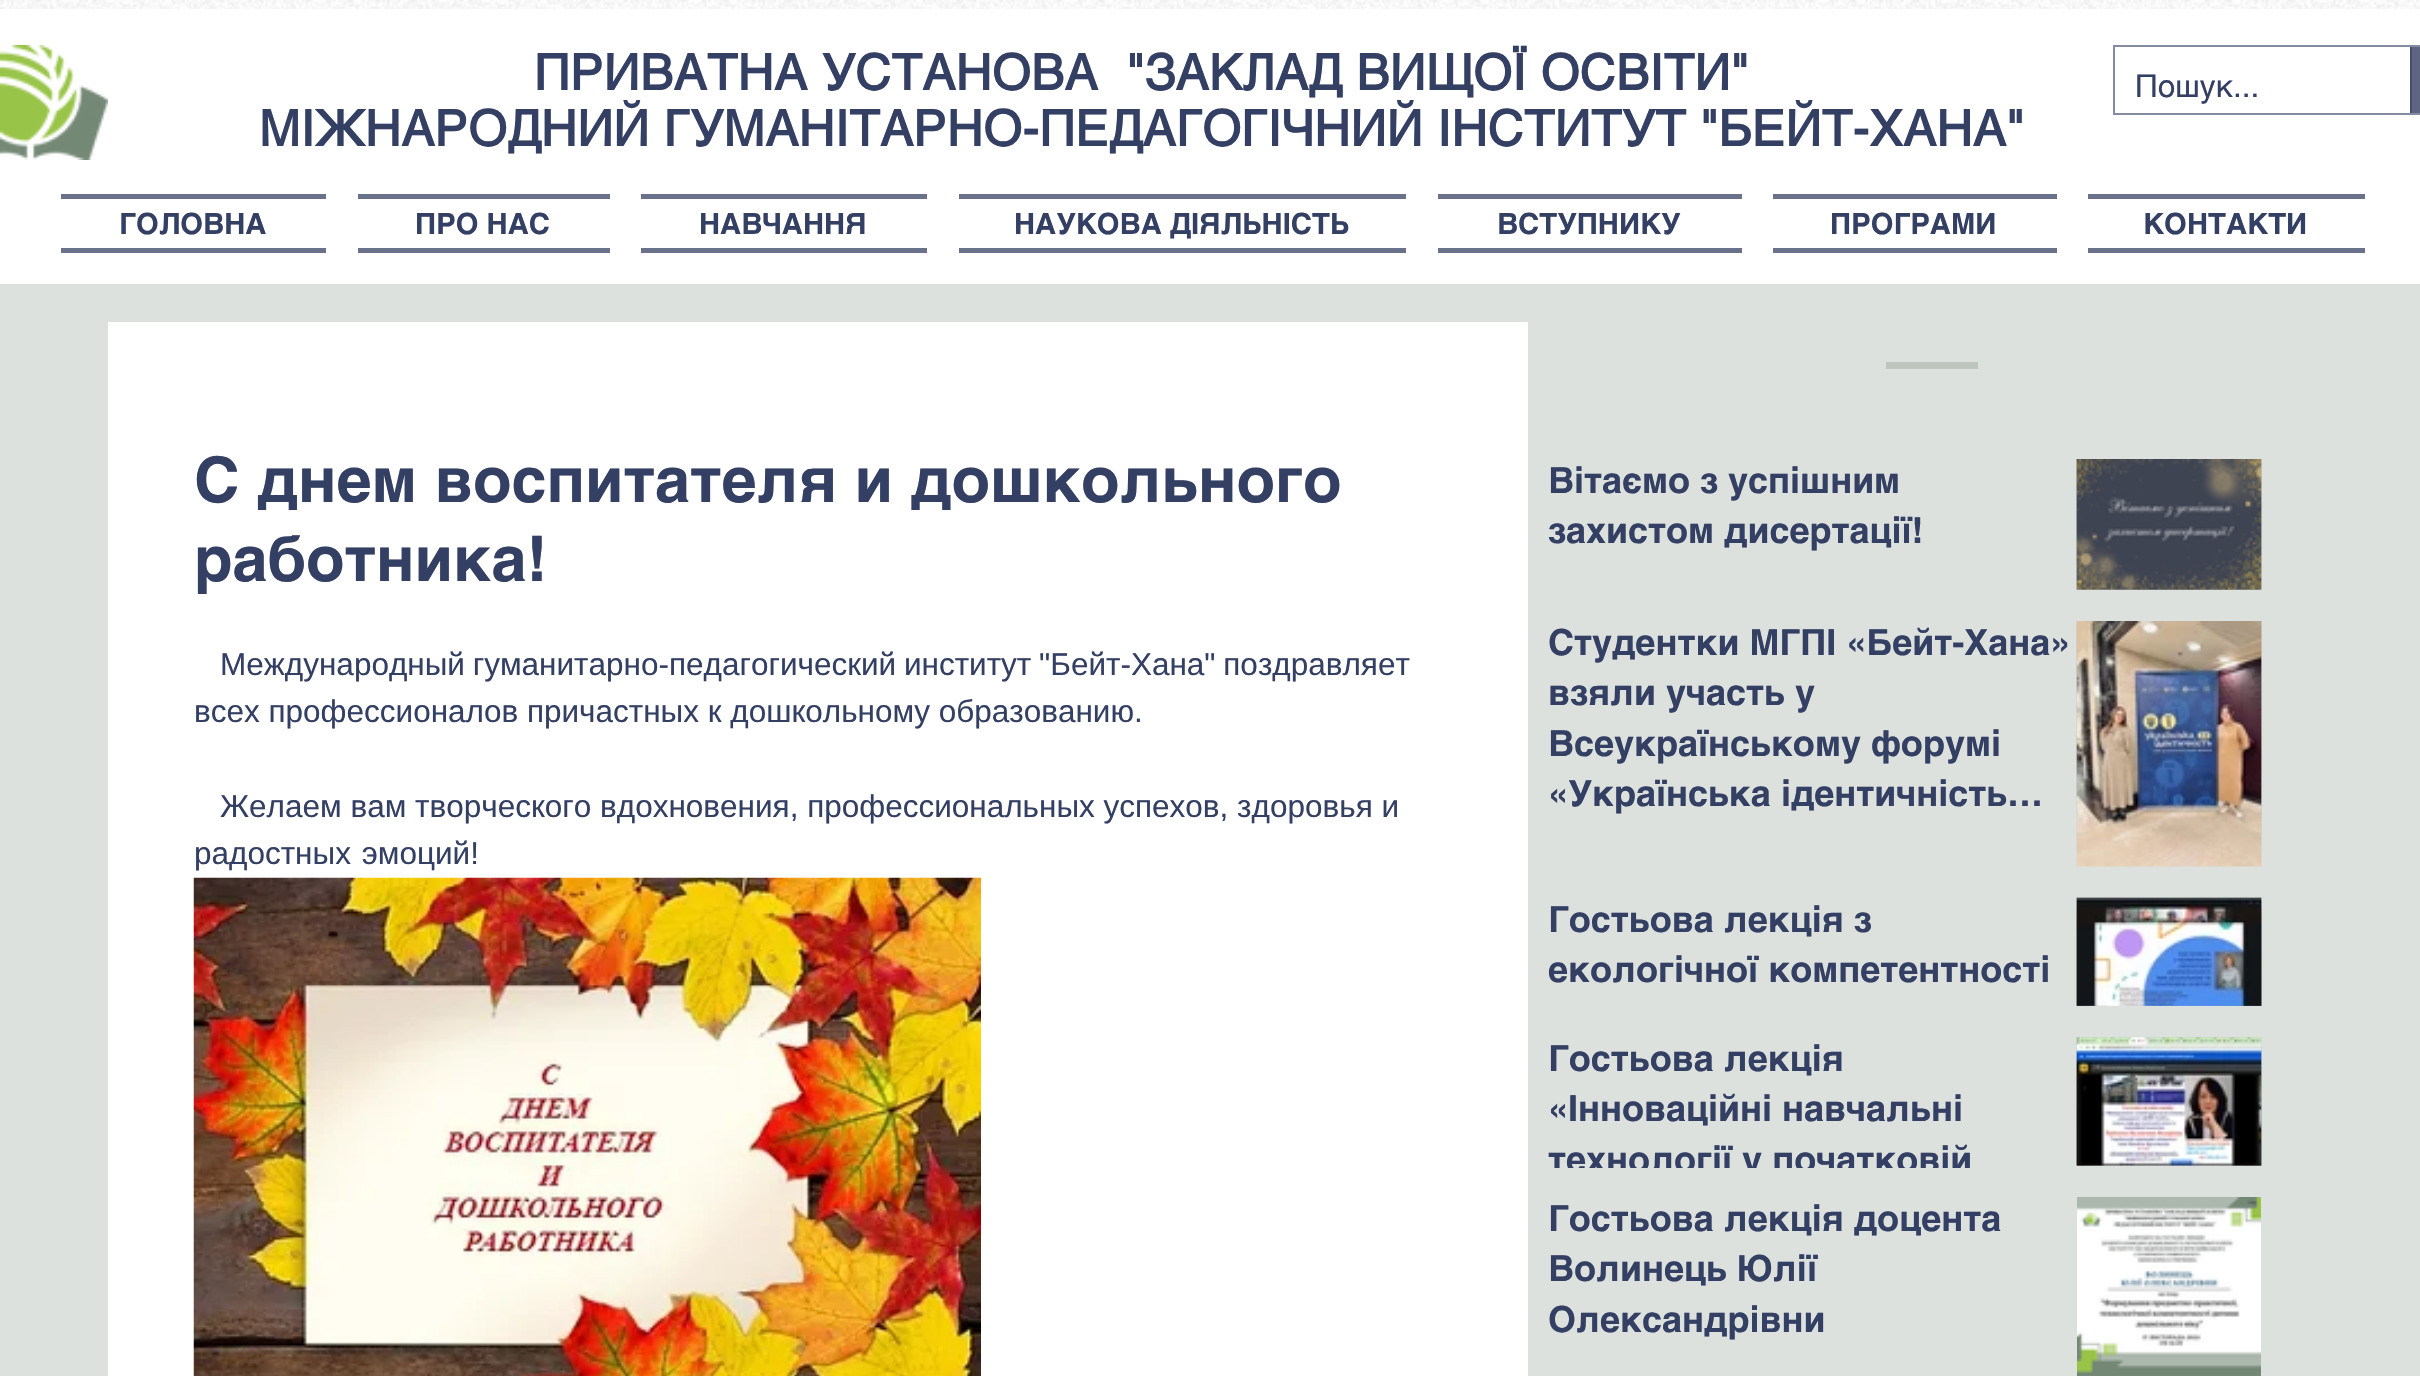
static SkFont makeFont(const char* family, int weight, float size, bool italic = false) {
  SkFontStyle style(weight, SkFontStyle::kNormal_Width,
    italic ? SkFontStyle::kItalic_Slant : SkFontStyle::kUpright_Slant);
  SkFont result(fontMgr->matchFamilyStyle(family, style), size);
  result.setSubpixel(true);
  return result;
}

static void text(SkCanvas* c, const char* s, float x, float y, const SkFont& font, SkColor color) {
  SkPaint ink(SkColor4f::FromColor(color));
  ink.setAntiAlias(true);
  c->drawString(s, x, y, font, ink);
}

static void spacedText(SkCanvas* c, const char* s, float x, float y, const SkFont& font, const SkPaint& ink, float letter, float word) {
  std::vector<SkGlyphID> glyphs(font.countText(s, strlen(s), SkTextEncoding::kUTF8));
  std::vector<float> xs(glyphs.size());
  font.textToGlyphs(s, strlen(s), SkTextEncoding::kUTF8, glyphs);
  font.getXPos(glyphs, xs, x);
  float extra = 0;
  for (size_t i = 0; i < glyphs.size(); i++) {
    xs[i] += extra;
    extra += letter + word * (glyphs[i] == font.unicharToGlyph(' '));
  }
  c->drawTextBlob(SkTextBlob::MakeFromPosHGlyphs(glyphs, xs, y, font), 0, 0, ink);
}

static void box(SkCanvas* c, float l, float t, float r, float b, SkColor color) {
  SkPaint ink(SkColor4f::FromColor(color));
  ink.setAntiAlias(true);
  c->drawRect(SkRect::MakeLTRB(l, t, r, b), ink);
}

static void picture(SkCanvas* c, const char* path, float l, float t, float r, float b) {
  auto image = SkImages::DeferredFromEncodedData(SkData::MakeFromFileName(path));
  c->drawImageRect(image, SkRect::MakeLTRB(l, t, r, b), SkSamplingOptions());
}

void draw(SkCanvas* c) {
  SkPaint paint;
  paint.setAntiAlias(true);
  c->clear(0xffffffff);
  picture(c, "img_01.png", 0, 0, 2420, 9);
  picture(c, "img_02.png", 0, 45, 108, 160);
  SkFont face1 = makeFont("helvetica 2", 700, 49.5f);
  paint.setColor(0xff343f64);
  spacedText(c, "ПРИВАТНА УСТАНОВА  \"ЗАКЛАД ВИЩОЇ ОСВІТИ\"", 534, 90, face1, paint, 0.5f, 0);
  spacedText(c, "МІЖНАРОДНИЙ ГУМАНІТАРНО-ПЕДАГОГІЧНИЙ ІНСТИТУТ \"БЕЙТ-ХАНА\"", 259, 146, face1, paint, 0.5f, 0);
  paint.setStyle(SkPaint::kStroke_Style);
  paint.setStrokeWidth(2);
  paint.setColor(0xff858ca2);
  c->drawRect(SkRect::MakeLTRB(2114, 46, 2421, 114), paint);
  SkFont face2 = makeFont("helvetica", 400, 31.5f);
  text(c, "Пошук...", 2135, 97, face2, 0xff343f64);
  box(c, 2412, 47, 2420, 113, 0xff5d6583);
  box(c, 2410, 47, 2412, 113, 0xff444e70);
  box(c, 61, 194, 326, 199, 0xff69718b);
  box(c, 61, 248, 326, 253, 0xff69718b);
  SkFont face3 = makeFont("helvetica", 700, 29.25f);
  text(c, "ГОЛОВНА", 119, 234, face3, 0xff343f64);
  box(c, 358, 194, 610, 199, 0xff69718b);
  box(c, 358, 248, 610, 253, 0xff69718b);
  text(c, "ПРО НАС", 415, 234, face3, 0xff343f64);
  box(c, 641, 194, 927, 199, 0xff69718b);
  box(c, 641, 248, 927, 253, 0xff69718b);
  text(c, "НАВЧАННЯ", 699, 234, face3, 0xff343f64);
  box(c, 959, 194, 1406, 199, 0xff69718b);
  box(c, 959, 248, 1406, 253, 0xff69718b);
  text(c, "НАУКОВА ДІЯЛЬНІСТЬ", 1014, 234, face3, 0xff343f64);
  box(c, 1438, 194, 1742, 199, 0xff69718b);
  box(c, 1438, 248, 1742, 253, 0xff69718b);
  text(c, "ВСТУПНИКУ", 1497, 234, face3, 0xff343f64);
  box(c, 1773, 194, 2057, 199, 0xff69718b);
  box(c, 1773, 248, 2057, 253, 0xff69718b);
  text(c, "ПРОГРАМИ", 1830, 234, face3, 0xff343f64);
  box(c, 2088, 194, 2365, 199, 0xff69718b);
  box(c, 2088, 248, 2365, 253, 0xff69718b);
  text(c, "КОНТАКТИ", 2143, 234, face3, 0xff343f64);
  box(c, 0, 284, 2420, 1376, 0xffdce1dd);
  box(c, 1886, 362, 1978, 369, 0xffbdc6be);
  box(c, 108, 322, 1528, 1376, 0xffffffff);
  SkFont face4 = makeFont("helvetica", 700, 63);
  text(c, "С днем воспитателя и дошкольного", 194, 502, face4, 0xff343f64);
  text(c, "работника!", 194, 581, face4, 0xff343f64);
  SkFont face5 = makeFont("Liberation Sans", 400, 31.5f);
  paint.setStyle(SkPaint::kFill_Style);
  paint.setColor(0xff343f64);
  spacedText(c, "Международный гуманитарно-педагогический институт \"Бейт-Хана\" поздравляет", 220, 675, face5, paint, 0, -1);
  text(c, "всех профессионалов причастных к дошкольному образованию.", 194, 722, face5, 0xff343f64);
  text(c, "Желаем вам творческого вдохновения, профессиональных успехов, здоровья и", 220, 817, face5, 0xff343f64);
  spacedText(c, "радостных эмоций!", 194, 864, face5, paint, 0, 2);
  picture(c, "img_03.png", 193, 877, 981, 1376);
  SkFont face6 = makeFont("helvetica", 700, 36);
  text(c, "Вітаємо з успішним", 1548, 493, face6, 0xff343f64);
  text(c, "захистом дисертації!", 1548, 543, face6, 0xff343f64);
  picture(c, "img_04.png", 2076, 459, 2262, 590);
  picture(c, "img_05.png", 2076, 459, 2262, 590);
  text(c, "Студентки МГПІ «Бейт-Хана»", 1548, 655, face6, 0xff343f64);
  text(c, "взяли участь у", 1548, 705, face6, 0xff343f64);
  text(c, "Всеукраїнському форумі", 1548, 756, face6, 0xff343f64);
  text(c, "«Українська ідентичність…", 1548, 806, face6, 0xff343f64);
  picture(c, "img_06.png", 2076, 621, 2262, 867);
  picture(c, "img_07.png", 2076, 621, 2262, 867);
  text(c, "Гостьова лекція з", 1548, 932, face6, 0xff343f64);
  text(c, "екологічної компетентності", 1548, 982, face6, 0xff343f64);
  picture(c, "img_08.png", 2076, 897, 2262, 1006);
  picture(c, "img_09.png", 2076, 897, 2262, 1006);
  text(c, "Гостьова лекція", 1548, 1071, face6, 0xff343f64);
  text(c, "«Інноваційні навчальні", 1548, 1121, face6, 0xff343f64);
  c->save();
  c->clipRect(SkRect::MakeLTRB(1548, 1035, 2075, 1168));
  text(c, "технології у початковій", 1548, 1172, face6, 0xff343f64);
  c->restore();
  picture(c, "img_10.png", 2076, 1037, 2262, 1166);
  picture(c, "img_11.png", 2076, 1037, 2262, 1166);
  text(c, "Гостьова лекція доцента", 1548, 1231, face6, 0xff343f64);
  text(c, "Волинець Юлії", 1548, 1281, face6, 0xff343f64);
  text(c, "Олександрівни", 1548, 1332, face6, 0xff343f64);
  picture(c, "img_12.png", 2077, 1197, 2261, 1376);
}
